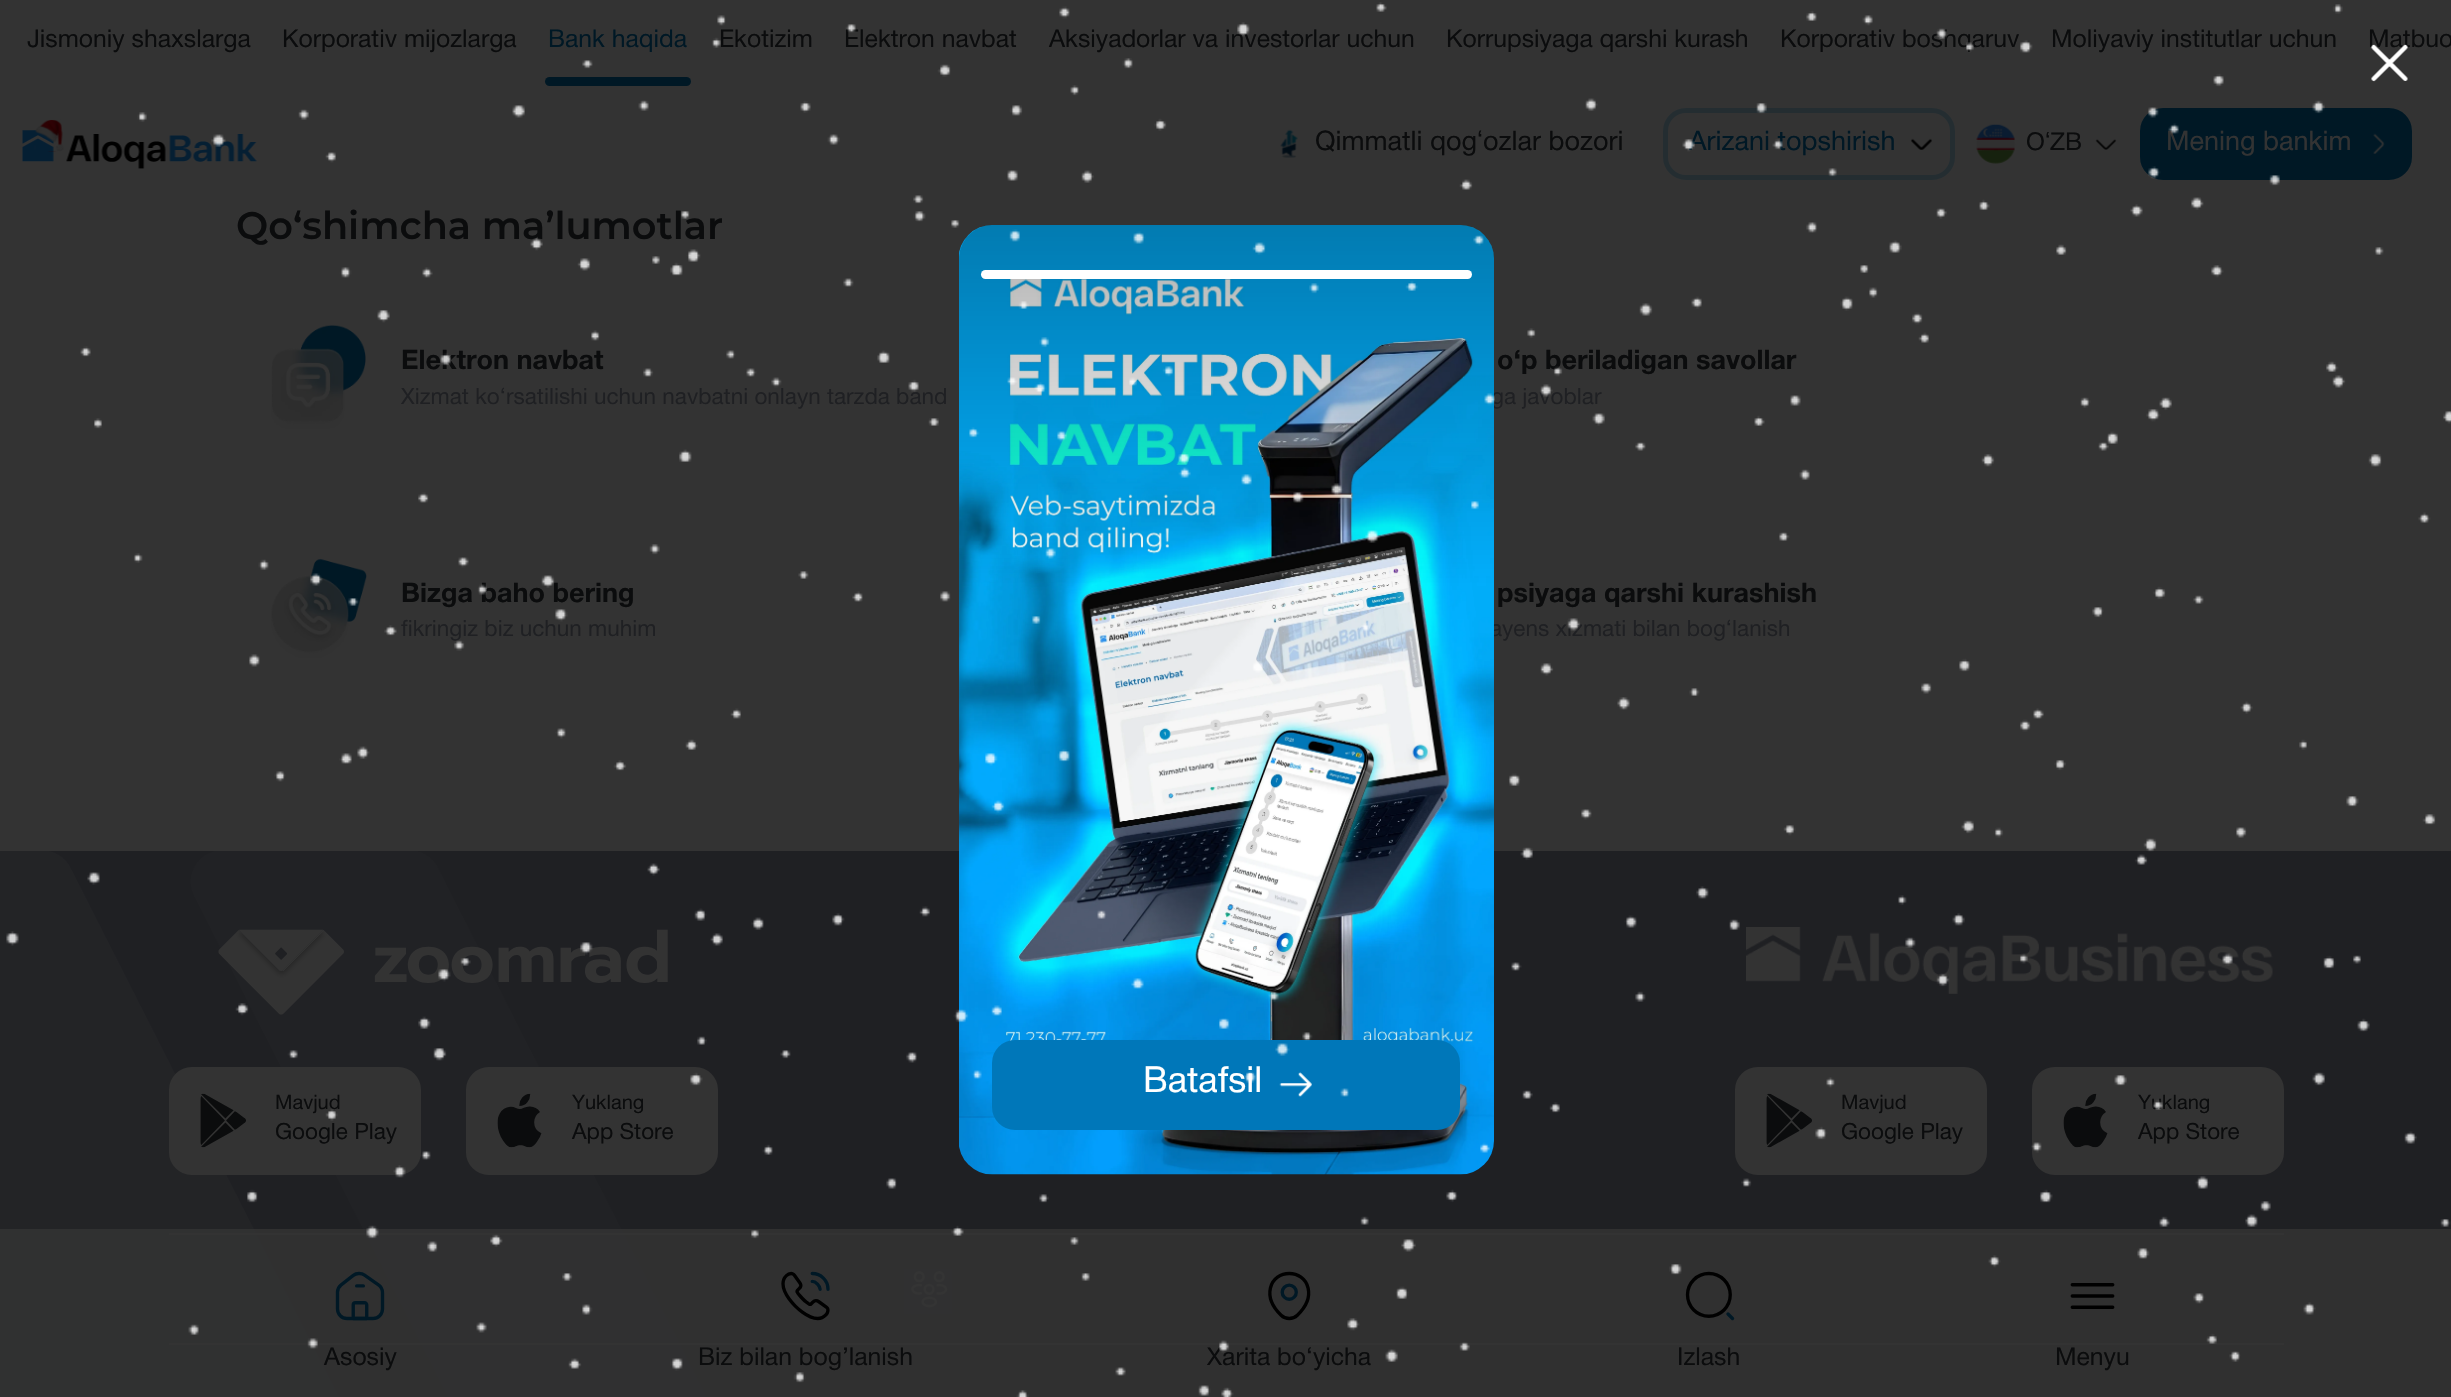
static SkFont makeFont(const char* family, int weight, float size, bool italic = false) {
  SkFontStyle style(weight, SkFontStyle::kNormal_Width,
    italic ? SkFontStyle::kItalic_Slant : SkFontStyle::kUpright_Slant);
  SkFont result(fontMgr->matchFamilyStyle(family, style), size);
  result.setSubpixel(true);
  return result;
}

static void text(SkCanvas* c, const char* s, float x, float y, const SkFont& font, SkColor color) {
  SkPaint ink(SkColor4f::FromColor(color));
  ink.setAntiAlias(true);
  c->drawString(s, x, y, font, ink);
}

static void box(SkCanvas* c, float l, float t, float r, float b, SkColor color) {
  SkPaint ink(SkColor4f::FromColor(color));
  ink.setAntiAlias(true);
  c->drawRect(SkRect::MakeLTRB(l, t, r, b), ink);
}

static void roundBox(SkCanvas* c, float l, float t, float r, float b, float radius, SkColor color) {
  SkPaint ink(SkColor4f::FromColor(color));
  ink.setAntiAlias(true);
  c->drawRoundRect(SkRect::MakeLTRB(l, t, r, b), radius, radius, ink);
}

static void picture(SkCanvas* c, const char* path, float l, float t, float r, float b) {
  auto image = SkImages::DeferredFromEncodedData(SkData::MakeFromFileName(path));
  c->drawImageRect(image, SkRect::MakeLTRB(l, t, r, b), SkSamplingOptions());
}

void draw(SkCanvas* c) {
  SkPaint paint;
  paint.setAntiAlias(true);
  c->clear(0xff333333);
  SkFont face1 = makeFont("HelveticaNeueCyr", 400, 24.75f);
  text(c, "Jismoniy shaxslarga", 27, 47, face1, 0xff0b0c0d);
  text(c, "Korporativ mijozlarga", 282, 47, face1, 0xff0b0c0d);
  text(c, "Bank haqida", 548, 47, face1, 0xff001825);
  roundBox(c, 545, 77, 691, 86, 4.5f, 0xff001825);
  text(c, "Ekotizim", 719, 47, face1, 0xff0b0c0d);
  text(c, "Elektron navbat", 844, 47, face1, 0xff0b0c0d);
  text(c, "Aksiyadorlar va investorlar uchun", 1049, 47, face1, 0xff0b0c0d);
  text(c, "Korrupsiyaga qarshi kurash", 1446, 47, face1, 0xff0b0c0d);
  text(c, "Korporativ boshqaruv", 1780, 47, face1, 0xff0b0c0d);
  text(c, "Moliyaviy institutlar uchun", 2051, 47, face1, 0xff0b0c0d);
  text(c, "Matbuo", 2368, 47, face1, 0xff0b0c0d);
  picture(c, "img_02.png", 22, 119, 257, 169);
  picture(c, "img_03.png", 1280, 129, 1298, 158);
  SkFont face2 = makeFont("HelveticaNeueCyr", 400, 27);
  text(c, "Qimmatli qog", 1315, 150, face2, 0xff0b0c0d);
  SkFont face3 = makeFont("Liberation Sans", 400, 27);
  text(c, "ʻ", 1477, 150, face3, 0xff0b0c0d);
  text(c, "ozlar bozori", 1483, 150, face2, 0xff0b0c0d);
  paint.setStyle(SkPaint::kStroke_Style);
  paint.setStrokeWidth(5);
  paint.setColor(0xff242d31);
  c->drawRoundRect(SkRect::MakeLTRB(1665.5f, 110.5f, 1952.5f, 177.5f), 20.5f, 20.5f, paint);
  text(c, "Arizani topshirish", 1689, 150, face2, 0xff001825);
  picture(c, "img_04.png", 1910, 138, 1933, 150);
  picture(c, "img_05.png", 1976, 124, 2016, 164);
  text(c, "O", 2026, 150, face1, 0xff0b0c0d);
  SkFont face4 = makeFont("Liberation Sans", 400, 24.75f);
  text(c, "ʻ", 2045, 150, face4, 0xff0b0c0d);
  text(c, "ZB", 2050, 150, face1, 0xff0b0c0d);
  picture(c, "img_06.png", 2095, 139, 2117, 150);
  paint.setStyle(SkPaint::kFill_Style);
  paint.setColor(0xff001825);
  c->drawRoundRect(SkRect::MakeLTRB(2142.5f, 110.5f, 2409.5f, 177.5f), 20.5f, 20.5f, paint);
  paint.setStyle(SkPaint::kStroke_Style);
  c->drawRoundRect(SkRect::MakeLTRB(2142.5f, 110.5f, 2409.5f, 177.5f), 20.5f, 20.5f, paint);
  text(c, "Mening bankim", 2166, 150, face2, 0xff333333);
  picture(c, "img_07.png", 2373, 133, 2385, 154);
  SkFont face5 = makeFont("Montserrat", 600, 38.25f);
  text(c, "Qo‘shimcha ma’lumotlar", 236, 239, face5, 0xff0b0c0d);
  picture(c, "img_08.png", 271, 324, 366, 429);
  SkFont face6 = makeFont("HelveticaNeueCyr", 700, 27);
  text(c, "Elektron navbat", 401, 369, face6, 0xff0b0c0d);
  SkFont face7 = makeFont("HelveticaNeueCyr", 400, 22.5f);
  text(c, "Xizmat ko‘rsatilishi uchun navbatni onlayn tarzda band", 401, 404, face7, 0xff1f2023);
  text(c, "o‘p beriladigan savollar", 1497, 369, face6, 0xff0b0c0d);
  text(c, "ga javoblar", 1491, 404, face7, 0xff1f2023);
  picture(c, "img_09.png", 271, 558, 367, 658);
  text(c, "Bizga baho bering", 401, 602, face6, 0xff0b0c0d);
  text(c, "fikringiz biz uchun muhim", 401, 636, face7, 0xff1f2023);
  text(c, "psiyaga qarshi kurashish", 1497, 602, face6, 0xff0b0c0d);
  text(c, "ayens xizmati bilan bog‘lanish", 1490, 636, face7, 0xff1f2023);
  picture(c, "img_10.png", 2371, 44, 2408, 82);
  box(c, 0, 851, 2451, 1397, 0xff1f2023);
  picture(c, "img_11.png", 959, 225, 1494, 1175);
  paint.setStyle(SkPaint::kFill_Style);
  {
    const SkColor colors[] = {0x4d000000, 0x00000000};
    const float stops[] = {0, 1};
    const SkPoint ends[] = {{1226, 225}, {1226, 585}};
    paint.setShader(SkGradientShader::MakeLinear(ends, colors, stops, 2, SkTileMode::kClamp));
    paint.setAlpha(255);
  }
  c->drawPath(SkPathBuilder().moveTo(993, 225).lineTo(1460, 225).cubicTo(1479, 225, 1494, 240, 1494, 259).lineTo(1494, 585).lineTo(959, 585).lineTo(959, 259).cubicTo(959, 240, 974, 225, 993, 225).close().detach(), paint);
  roundBox(c, 981, 270, 1472, 279, 4.5f, 0xffffffff);
  paint.setShader(nullptr);
  paint.setColor(0xff0077b9);
  c->drawRoundRect(SkRect::MakeLTRB(994.5f, 1042.5f, 1457.5f, 1127.5f), 20.5f, 20.5f, paint);
  paint.setStyle(SkPaint::kStroke_Style);
  c->drawRoundRect(SkRect::MakeLTRB(994.5f, 1042.5f, 1457.5f, 1127.5f), 20.5f, 20.5f, paint);
  SkFont face8 = makeFont("HelveticaNeueCyr", 400, 36);
  text(c, "Batafsil", 1143, 1092, face8, 0xffffffff);
  picture(c, "img_12.png", 1279, 1072, 1312, 1097);
  picture(c, "img_13.png", 0, 851, 706, 1397);
  picture(c, "img_14.png", 218, 929, 668, 1015);
  paint.setStyle(SkPaint::kFill_Style);
  paint.setColor(0xff333333);
  c->drawRoundRect(SkRect::MakeLTRB(171.5f, 1069.5f, 418.5f, 1172.5f), 20.5f, 20.5f, paint);
  paint.setStyle(SkPaint::kStroke_Style);
  c->drawRoundRect(SkRect::MakeLTRB(171.5f, 1069.5f, 418.5f, 1172.5f), 20.5f, 20.5f, paint);
  picture(c, "img_15.png", 200, 1093, 246, 1148);
  SkFont face9 = makeFont("HelveticaNeueCyr", 400, 20);
  text(c, "Mavjud", 275, 1109, face9, 0xff0b0c0d);
  text(c, "Google Play", 275, 1139, face7, 0xff0b0c0d);
  paint.setStyle(SkPaint::kFill_Style);
  c->drawRoundRect(SkRect::MakeLTRB(468.5f, 1069.5f, 715.5f, 1172.5f), 20.5f, 20.5f, paint);
  paint.setStyle(SkPaint::kStroke_Style);
  c->drawRoundRect(SkRect::MakeLTRB(468.5f, 1069.5f, 715.5f, 1172.5f), 20.5f, 20.5f, paint);
  picture(c, "img_16.png", 497, 1093, 542, 1148);
  text(c, "Yuklang", 572, 1109, face9, 0xff0b0c0d);
  text(c, "App Store", 572, 1139, face7, 0xff0b0c0d);
  picture(c, "img_17.png", 1746, 927, 2273, 994);
  paint.setStyle(SkPaint::kFill_Style);
  c->drawRoundRect(SkRect::MakeLTRB(1737.5f, 1069.5f, 1984.5f, 1172.5f), 20.5f, 20.5f, paint);
  paint.setStyle(SkPaint::kStroke_Style);
  c->drawRoundRect(SkRect::MakeLTRB(1737.5f, 1069.5f, 1984.5f, 1172.5f), 20.5f, 20.5f, paint);
  picture(c, "img_18.png", 1766, 1093, 1812, 1148);
  text(c, "Mavjud", 1841, 1109, face9, 0xff0b0c0d);
  text(c, "Google Play", 1841, 1139, face7, 0xff0b0c0d);
  paint.setStyle(SkPaint::kFill_Style);
  c->drawRoundRect(SkRect::MakeLTRB(2034.5f, 1069.5f, 2281.5f, 1172.5f), 20.5f, 20.5f, paint);
  paint.setStyle(SkPaint::kStroke_Style);
  c->drawRoundRect(SkRect::MakeLTRB(2034.5f, 1069.5f, 2281.5f, 1172.5f), 20.5f, 20.5f, paint);
  picture(c, "img_19.png", 2063, 1093, 2108, 1148);
  text(c, "Yuklang", 2138, 1109, face9, 0xff0b0c0d);
  text(c, "App Store", 2138, 1139, face7, 0xff0b0c0d);
  box(c, 169, 1233, 2284, 1235, 0xff303031);
  picture(c, "img_20.png", 904, 1269, 952, 1314);
  box(c, 169, 1343, 2284, 1345, 0xff303031);
  box(c, 0, 1229, 2451, 1397, 0xcc333333);
  picture(c, "img_21.png", 335, 1271, 385, 1321);
  text(c, "Asosiy", 324, 1365, face1, 0xff0b0c0d);
  picture(c, "img_22.png", 781, 1271, 830, 1321);
  text(c, "Biz bilan bog’lanish", 698, 1365, face1, 0xff0b0c0d);
  picture(c, "img_23.png", 1268, 1271, 1311, 1321);
  text(c, "Xarita bo‘yicha", 1207, 1365, face1, 0xff0b0c0d);
  picture(c, "img_24.png", 1685, 1271, 1735, 1321);
  text(c, "Izlash", 1677, 1365, face1, 0xff0b0c0d);
  picture(c, "img_25.png", 2070, 1283, 2115, 1309);
  text(c, "Menyu", 2055, 1365, face1, 0xff0b0c0d);
  picture(c, "img_01.png", 6, 2, 2451, 1397);
}
